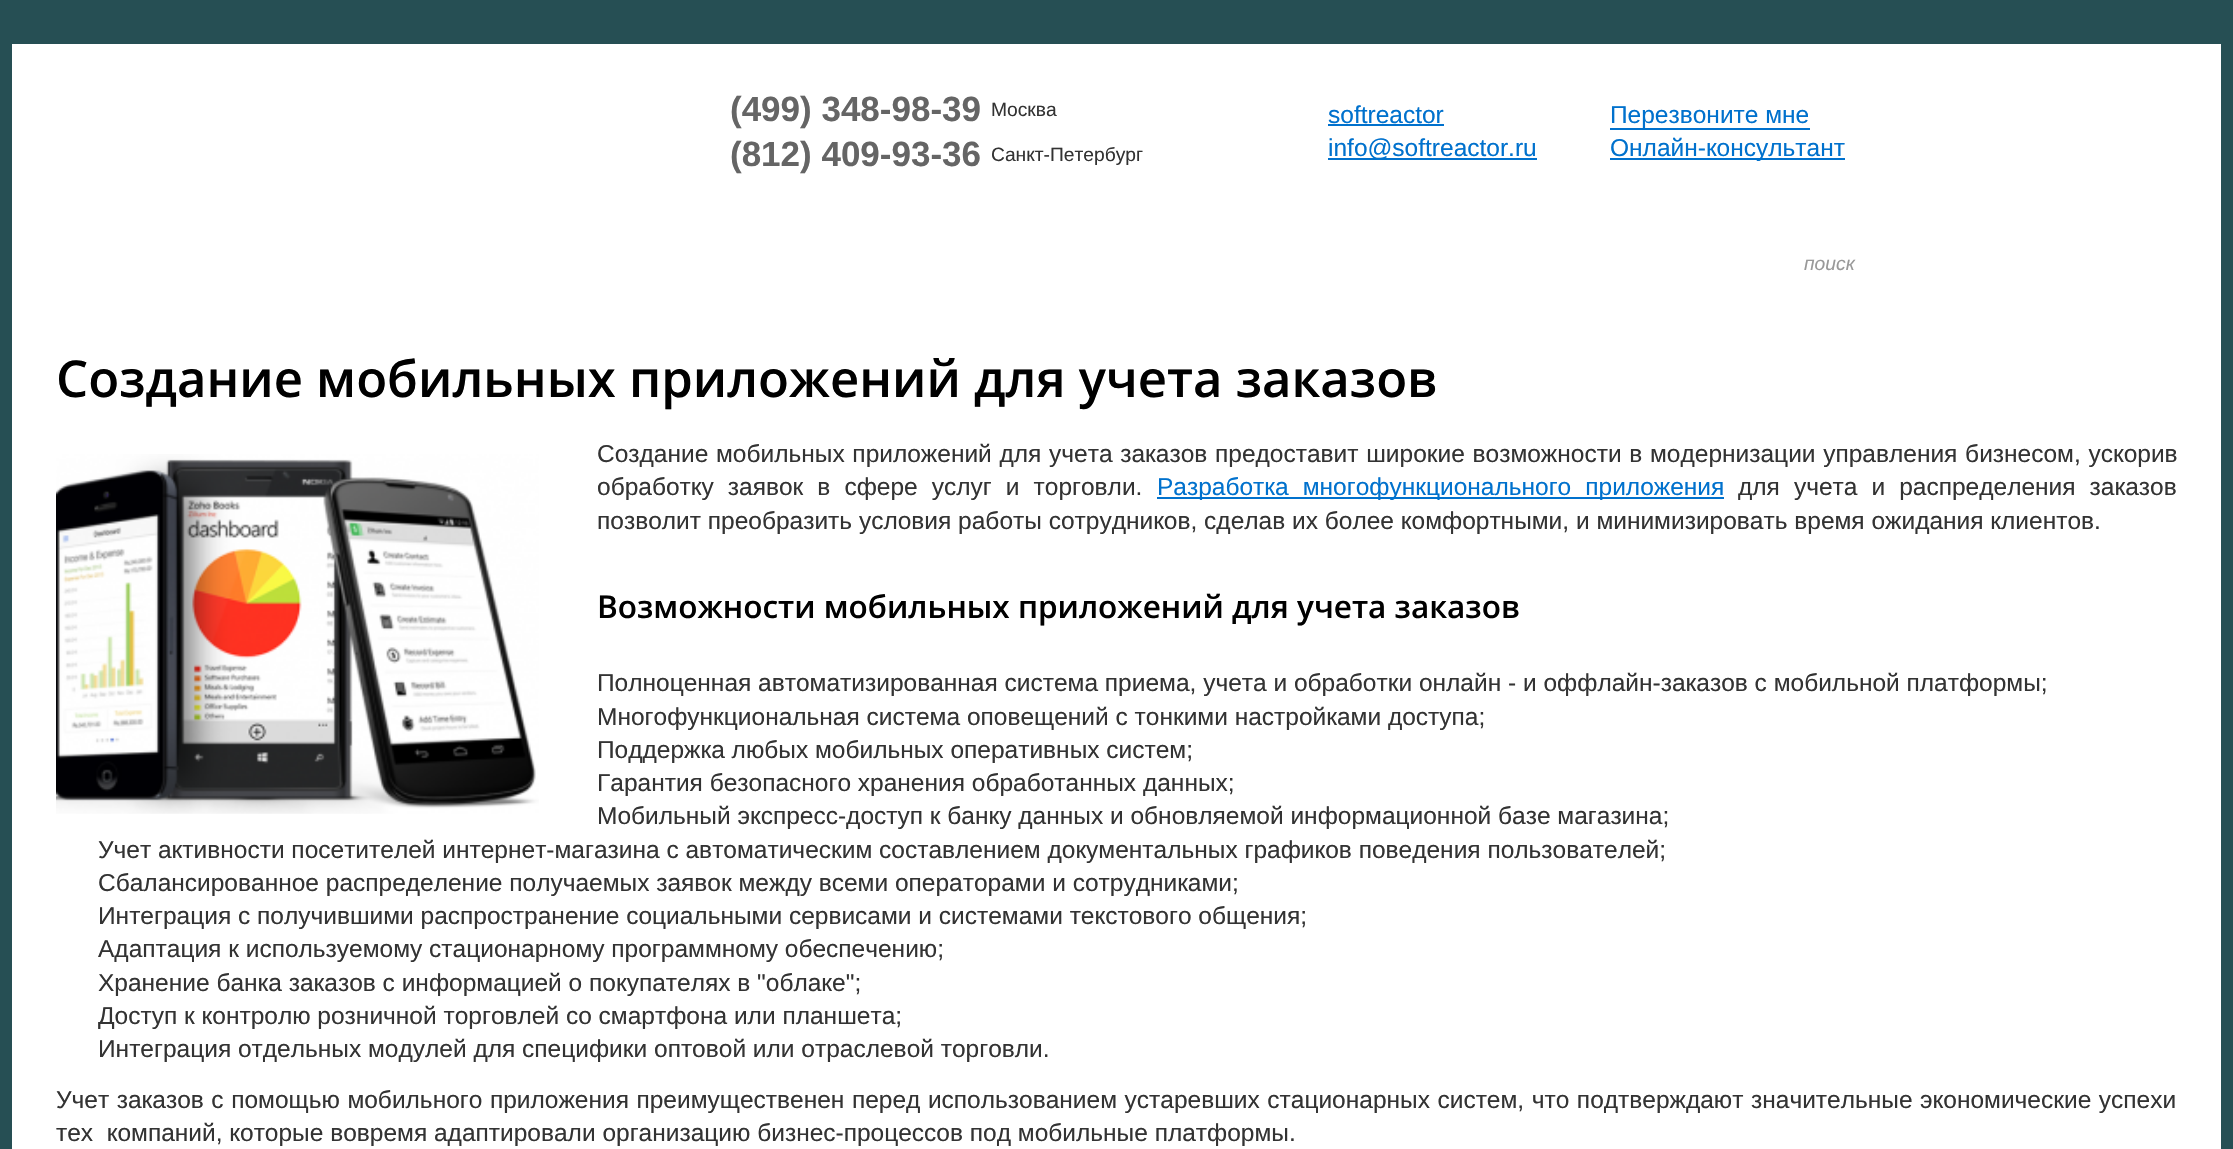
static SkFont makeFont(const char* family, int weight, float size, bool italic = false) {
  SkFontStyle style(weight, SkFontStyle::kNormal_Width,
    italic ? SkFontStyle::kItalic_Slant : SkFontStyle::kUpright_Slant);
  SkFont result(fontMgr->matchFamilyStyle(family, style), size);
  result.setSubpixel(true);
  return result;
}

static void text(SkCanvas* c, const char* s, float x, float y, const SkFont& font, SkColor color) {
  SkPaint ink(SkColor4f::FromColor(color));
  ink.setAntiAlias(true);
  c->drawString(s, x, y, font, ink);
}

static void spacedText(SkCanvas* c, const char* s, float x, float y, const SkFont& font, const SkPaint& ink, float letter, float word) {
  std::vector<SkGlyphID> glyphs(font.countText(s, strlen(s), SkTextEncoding::kUTF8));
  std::vector<float> xs(glyphs.size());
  font.textToGlyphs(s, strlen(s), SkTextEncoding::kUTF8, glyphs);
  font.getXPos(glyphs, xs, x);
  float extra = 0;
  for (size_t i = 0; i < glyphs.size(); i++) {
    xs[i] += extra;
    extra += letter + word * (glyphs[i] == font.unicharToGlyph(' '));
  }
  c->drawTextBlob(SkTextBlob::MakeFromPosHGlyphs(glyphs, xs, y, font), 0, 0, ink);
}

static void box(SkCanvas* c, float l, float t, float r, float b, SkColor color) {
  SkPaint ink(SkColor4f::FromColor(color));
  ink.setAntiAlias(true);
  c->drawRect(SkRect::MakeLTRB(l, t, r, b), ink);
}

static void picture(SkCanvas* c, const char* path, float l, float t, float r, float b) {
  auto image = SkImages::DeferredFromEncodedData(SkData::MakeFromFileName(path));
  c->drawImageRect(image, SkRect::MakeLTRB(l, t, r, b), SkSamplingOptions());
}

void draw(SkCanvas* c) {
  SkPaint paint;
  paint.setAntiAlias(true);
  c->clear(0xff264f54);
  box(c, 12, 44, 2221, 1149, 0xffffffff);
  SkFont face1 = makeFont("Liberation Sans", 700, 35);
  text(c, "(499) 348-98-39", 730, 121, face1, 0xff656565);
  SkFont face2 = makeFont("Liberation Sans", 400, 19.25f);
  text(c, "Москва", 991, 116, face2, 0xff333333);
  text(c, "(812) 409-93-36", 730, 166, face1, 0xff656565);
  text(c, "Санкт-Петербург", 991, 161, face2, 0xff333333);
  SkFont face3 = makeFont("Liberation Sans", 400, 24.5f);
  text(c, "softreactor", 1328, 123, face3, 0xff0071cd);
  box(c, 1328, 124, 1444, 126, 0xff0071cd);
  box(c, 1328, 158, 1537, 160, 0xff0071cd);
  text(c, "info@softreactor.ru", 1328, 156, face3, 0xff0071cd);
  box(c, 1610, 128, 1810, 130, 0xff0071cd);
  text(c, "Перезвоните мне", 1610, 123, face3, 0xff0071cd);
  box(c, 1610, 158, 1845, 160, 0xff0071cd);
  text(c, "Онлайн-консультант", 1610, 156, face3, 0xff0071cd);
  SkFont face4 = makeFont("Liberation Sans", 400, 19.25f, true);
  text(c, "поиск", 1804, 270, face4, 0xff999999);
  SkFont face5 = makeFont("Open Sans", 600, 50.75f);
  text(c, "Создание мобильных приложений для учета заказов", 56, 397, face5, 0xff000000);
  picture(c, "img_01.png", 56, 454, 539, 814);
  paint.setColor(0xff333333);
  spacedText(c, "Создание мобильных приложений для учета заказов предоставит широкие возможности в модернизации управления бизнесом, ускорив", 597, 462, face3, paint, 0, 0.9f);
  spacedText(c, "обработку заявок в сфере услуг и торговли.", 597, 495, face3, paint, 0, 7.25f);
  box(c, 1157, 497, 1724, 499, 0xff0071cd);
  paint.setColor(0xff0071cd);
  spacedText(c, "Разработка многофункционального приложения", 1157, 495, face3, paint, 0, 7.25f);
  paint.setColor(0xff333333);
  spacedText(c, "для учета и распределения заказов", 1738, 495, face3, paint, 0, 7.25f);
  text(c, "позволит преобразить условия работы сотрудников, сделав их более комфортными, и минимизировать время ожидания клиентов.", 597, 529, face3, 0xff333333);
  SkFont face6 = makeFont("Open Sans", 600, 31.5f);
  text(c, "Возможности мобильных приложений для учета заказов", 597, 618, face6, 0xff000000);
  text(c, "Полноценная автоматизированная система приема, учета и обработки онлайн - и оффлайн-заказов с мобильной платформы;", 597, 691, face3, 0xff333333);
  text(c, "Многофункциональная система оповещений с тонкими настройками доступа;", 597, 725, face3, 0xff333333);
  text(c, "Поддержка любых мобильных оперативных систем;", 597, 758, face3, 0xff333333);
  text(c, "Гарантия безопасного хранения обработанных данных;", 597, 791, face3, 0xff333333);
  text(c, "Мобильный экспресс-доступ к банку данных и обновляемой информационной базе магазина;", 597, 824, face3, 0xff333333);
  text(c, "Учет активности посетителей интернет-магазина с автоматическим составлением документальных графиков поведения пользователей;", 98, 858, face3, 0xff333333);
  text(c, "Сбалансированное распределение получаемых заявок между всеми операторами и сотрудниками;", 98, 891, face3, 0xff333333);
  text(c, "Интеграция с получившими распространение социальными сервисами и системами текстового общения;", 98, 924, face3, 0xff333333);
  text(c, "Адаптация к используемому стационарному программному обеспечению;", 98, 957, face3, 0xff333333);
  text(c, "Хранение банка заказов с информацией о покупателях в \"облаке\";", 98, 991, face3, 0xff333333);
  text(c, "Доступ к контролю розничной торговлей со смартфона или планшета;", 98, 1024, face3, 0xff333333);
  text(c, "Интеграция отдельных модулей для специфики оптовой или отраслевой торговли.", 98, 1057, face3, 0xff333333);
  spacedText(c, "Учет заказов с помощью мобильного приложения преимущественен перед использованием устаревших стационарных систем, что подтверждают значительные экономические успехи", 56, 1108, face3, paint, 0, 0.75f);
  text(c, "тех  компаний, которые вовремя адаптировали организацию бизнес-процессов под мобильные платформы.", 56, 1141, face3, 0xff333333);
}
